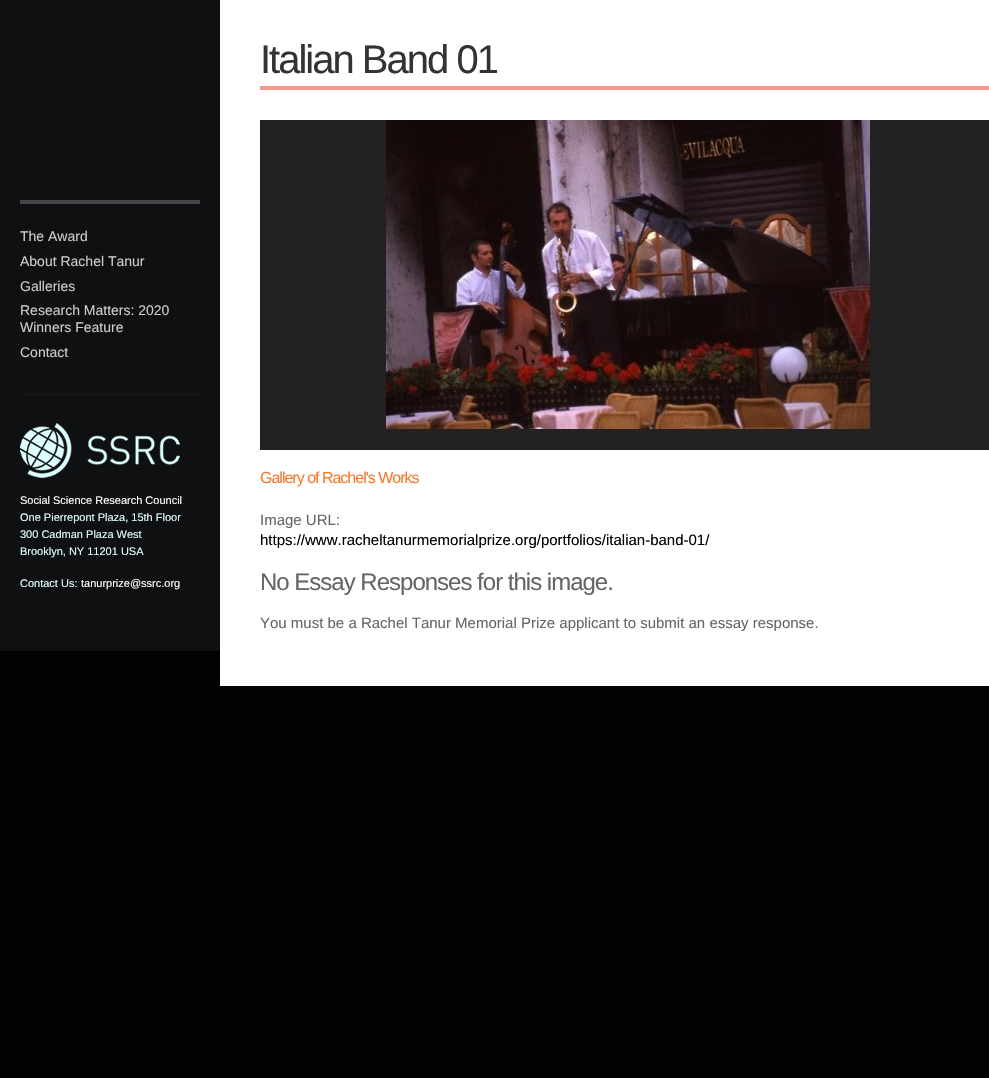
static SkFont makeFont(const char* family, int weight, float size, bool italic = false) {
  SkFontStyle style(weight, SkFontStyle::kNormal_Width,
    italic ? SkFontStyle::kItalic_Slant : SkFontStyle::kUpright_Slant);
  SkFont result(fontMgr->matchFamilyStyle(family, style), size);
  result.setSubpixel(true);
  return result;
}

static void text(SkCanvas* c, const char* s, float x, float y, const SkFont& font, SkColor color) {
  SkPaint ink(SkColor4f::FromColor(color));
  ink.setAntiAlias(true);
  c->drawString(s, x, y, font, ink);
}

static void spacedText(SkCanvas* c, const char* s, float x, float y, const SkFont& font, const SkPaint& ink, float letter, float word) {
  std::vector<SkGlyphID> glyphs(font.countText(s, strlen(s), SkTextEncoding::kUTF8));
  std::vector<float> xs(glyphs.size());
  font.textToGlyphs(s, strlen(s), SkTextEncoding::kUTF8, glyphs);
  font.getXPos(glyphs, xs, x);
  float extra = 0;
  for (size_t i = 0; i < glyphs.size(); i++) {
    xs[i] += extra;
    extra += letter + word * (glyphs[i] == font.unicharToGlyph(' '));
  }
  c->drawTextBlob(SkTextBlob::MakeFromPosHGlyphs(glyphs, xs, y, font), 0, 0, ink);
}

static void box(SkCanvas* c, float l, float t, float r, float b, SkColor color) {
  SkPaint ink(SkColor4f::FromColor(color));
  ink.setAntiAlias(true);
  c->drawRect(SkRect::MakeLTRB(l, t, r, b), ink);
}

static void picture(SkCanvas* c, const char* path, float l, float t, float r, float b) {
  auto image = SkImages::DeferredFromEncodedData(SkData::MakeFromFileName(path));
  c->drawImageRect(image, SkRect::MakeLTRB(l, t, r, b), SkSamplingOptions());
}

void draw(SkCanvas* c) {
  SkPaint paint;
  paint.setAntiAlias(true);
  c->clear(0xff020202);
  box(c, 0, 0, 220, 651, 0xff0f1012);
  box(c, 20, 200, 200, 204, 0xff44464a);
  SkFont face1 = makeFont("Liberation Sans", 400, 14);
  text(c, "The Award", 20, 241, face1, 0xffcccccc);
  text(c, "About Rachel Tanur", 20, 266, face1, 0xffcccccc);
  text(c, "Galleries", 20, 291, face1, 0xffcccccc);
  text(c, "Research Matters: 2020", 20, 315, face1, 0xffcccccc);
  text(c, "Winners Feature", 20, 332, face1, 0xffcccccc);
  text(c, "Contact", 20, 357, face1, 0xffcccccc);
  paint.setStyle(SkPaint::kStroke_Style);
  paint.setStrokeWidth(1);
  paint.setColor(0xff222222);
  paint.setPathEffect(SkDashPathEffect::Make({{1, 1}}, 0));
  c->drawPath(SkPathBuilder().moveTo(20, 394.5f).lineTo(200, 394.5f).detach(), paint);
  paint.setPathEffect(nullptr);
  picture(c, "img_01.png", 20, 423, 180, 478);
  SkFont face2 = makeFont("Liberation Sans", 400, 11);
  text(c, "Social Science Research Council", 20, 504, face2, 0xffffffff);
  text(c, "One Pierrepont Plaza, 15th Floor", 20, 521, face2, 0xffddffff);
  text(c, "300 Cadman Plaza West", 20, 538, face2, 0xffddffff);
  text(c, "Brooklyn, NY 11201 USA", 20, 555, face2, 0xffddffff);
  text(c, "Contact Us:", 20, 587, face2, 0xffddffff);
  text(c, "tanurprize@ssrc.org", 81, 587, face2, 0xffffffff);
  box(c, 220, 0, 989, 686, 0xffffffff);
  box(c, 260, 86, 989, 90, 0xfff2978e);
  SkFont face3 = makeFont("Liberation Sans", 400, 40);
  paint.setStyle(SkPaint::kFill_Style);
  paint.setColor(0xff333333);
  spacedText(c, "Italian Band 01", 260, 73, face3, paint, -2, 0);
  box(c, 260, 120, 989, 450, 0xff222222);
  picture(c, "img_02.png", 386, 120, 870, 429);
  SkFont face4 = makeFont("Liberation Sans", 400, 16);
  paint.setColor(0xfff57a30);
  spacedText(c, "Gallery of Rachel's Works", 260, 483, face4, paint, -1, 0);
  SkFont face5 = makeFont("Liberation Sans", 400, 15);
  text(c, "Image URL:", 260, 525, face5, 0xff666666);
  c->save();
  c->clipRect(SkRect::MakeLTRB(260, 531, 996, 548));
  text(c, "https://www.racheltanurmemorialprize.org/portfolios/italian-band-01/", 260, 545, face5, 0xff000000);
  c->restore();
  SkFont face6 = makeFont("Liberation Sans", 400, 24);
  paint.setColor(0xff666666);
  spacedText(c, "No Essay Responses for this image.", 260, 590, face6, paint, -1, 0);
  text(c, "You must be a Rachel Tanur Memorial Prize applicant to submit an essay response.", 260, 628, face5, 0xff666666);
}
